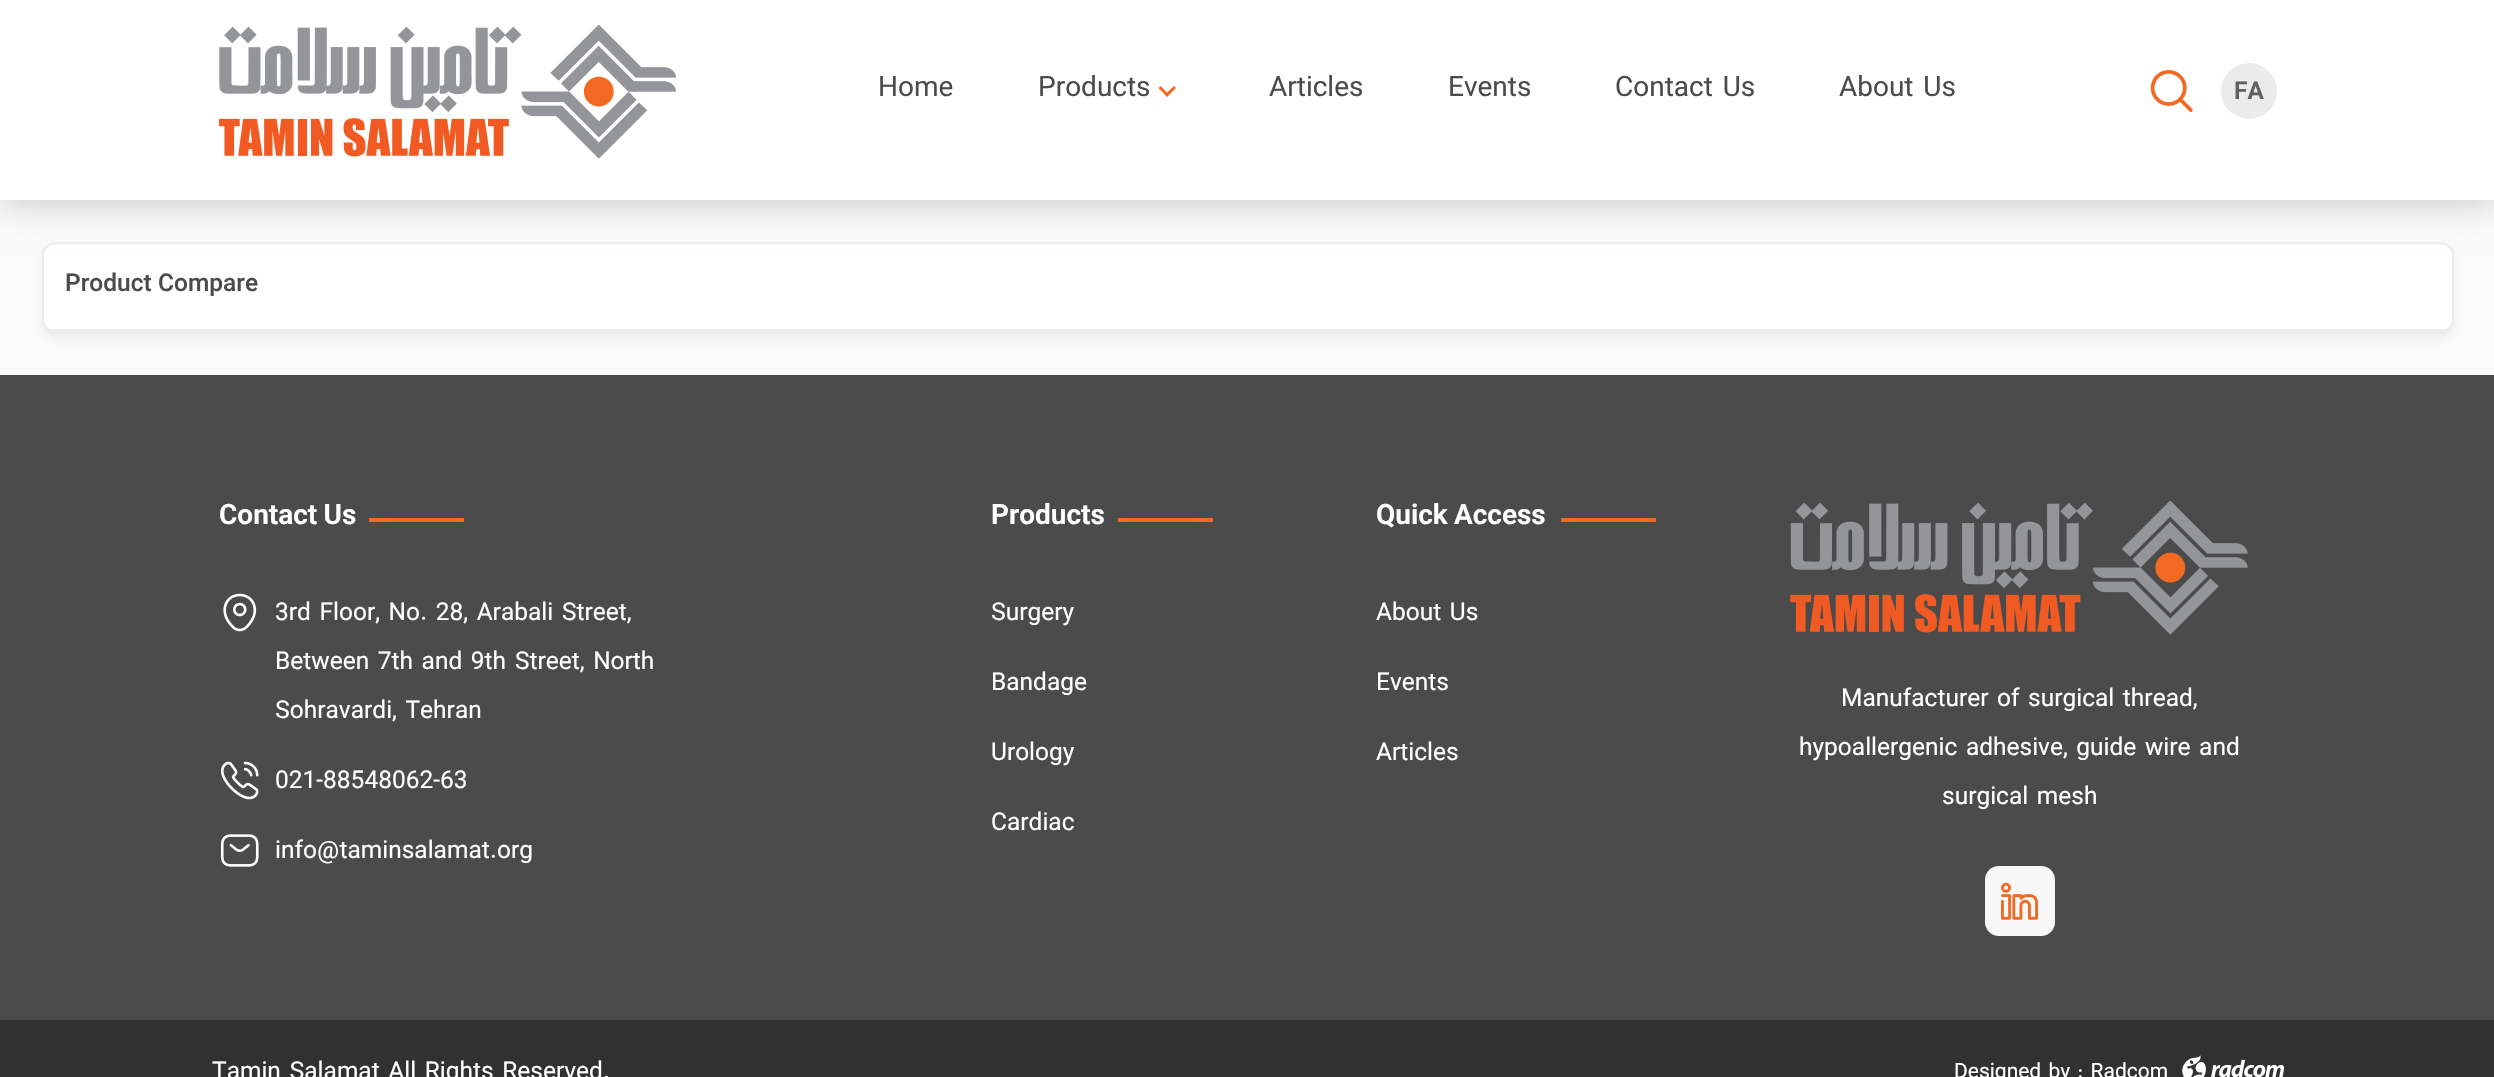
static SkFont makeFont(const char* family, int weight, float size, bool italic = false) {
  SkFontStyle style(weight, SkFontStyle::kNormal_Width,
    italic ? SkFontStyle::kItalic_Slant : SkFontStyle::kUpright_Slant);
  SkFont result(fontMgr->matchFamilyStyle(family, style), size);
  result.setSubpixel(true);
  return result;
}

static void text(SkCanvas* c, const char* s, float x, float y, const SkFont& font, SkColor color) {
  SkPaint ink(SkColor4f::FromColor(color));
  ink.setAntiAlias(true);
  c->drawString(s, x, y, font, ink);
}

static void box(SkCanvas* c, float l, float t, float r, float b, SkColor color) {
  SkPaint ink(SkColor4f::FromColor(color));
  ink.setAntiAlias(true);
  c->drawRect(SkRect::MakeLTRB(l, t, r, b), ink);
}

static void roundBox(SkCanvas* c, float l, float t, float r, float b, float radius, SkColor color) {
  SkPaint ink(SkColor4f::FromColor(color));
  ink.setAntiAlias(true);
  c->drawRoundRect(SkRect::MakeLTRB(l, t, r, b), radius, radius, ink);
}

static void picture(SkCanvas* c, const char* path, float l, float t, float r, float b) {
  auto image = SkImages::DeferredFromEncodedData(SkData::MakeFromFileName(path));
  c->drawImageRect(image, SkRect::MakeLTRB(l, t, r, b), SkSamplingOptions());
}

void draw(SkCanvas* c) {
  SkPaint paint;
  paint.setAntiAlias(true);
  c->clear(0xfffbfbfb);
  paint.setColor(0xffebebeb);
  paint.setMaskFilter(SkMaskFilter::MakeBlur(kNormal_SkBlurStyle, 5));
  c->drawRoundRect(SkRect::MakeLTRB(42, 247, 2454, 338), 14, 14, paint);
  paint.setMaskFilter(nullptr);
  paint.setColor(0xffffffff);
  c->drawRoundRect(SkRect::MakeLTRB(43, 243, 2453, 332), 13, 13, paint);
  paint.setStyle(SkPaint::kStroke_Style);
  paint.setStrokeWidth(2);
  paint.setColor(0xffebebeb);
  c->drawRoundRect(SkRect::MakeLTRB(43, 243, 2453, 332), 13, 13, paint);
  paint.setStyle(SkPaint::kFill_Style);
  paint.setColor(0x33000000);
  paint.setMaskFilter(SkMaskFilter::MakeBlur(kNormal_SkBlurStyle, 17.5f));
  c->drawRect(SkRect::MakeLTRB(0, -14, 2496, 203), paint);
  paint.setMaskFilter(nullptr);
  box(c, 0, 0, 2494, 200, 0xffffffff);
  picture(c, "img_01.png", 219, 25, 677, 159);
  SkFont face1 = makeFont("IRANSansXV", 400, 28);
  text(c, "Home", 878, 96, face1, 0xff4b4b4b);
  text(c, "Products", 1038, 96, face1, 0xff4b4b4b);
  paint.setColor(0xfff26922);
  c->drawPath(SkPathBuilder().moveTo(1160.5f, 86).lineTo(1167, 92.5f).lineTo(1174, 86).lineTo(1176, 88).lineTo(1167, 97).lineTo(1158.5f, 88).close().detach(), paint);
  text(c, "Articles", 1269, 96, face1, 0xff4b4b4b);
  text(c, "Events", 1448, 96, face1, 0xff4b4b4b);
  text(c, "Contact Us", 1615, 96, face1, 0xff4b4b4b);
  text(c, "About Us", 1839, 96, face1, 0xff4b4b4b);
  picture(c, "img_02.png", 2150, 70, 2193, 112);
  paint.setColor(0xffebebeb);
  c->drawCircle(2249, 91, 28, paint);
  SkFont face2 = makeFont("IRANSansXV", 700, 24.5f);
  text(c, "FA", 2234, 99, face2, 0xff606060);
  c->save();
  c->clipPath(SkPathBuilder().moveTo(56, 243).lineTo(2440, 243).cubicTo(2446.5f, 243, 2452, 248.5f, 2452, 255).lineTo(2452, 319).cubicTo(2452, 325.5f, 2446.5f, 331, 2440, 331).lineTo(56, 331).cubicTo(49.5f, 331, 44, 325.5f, 44, 319).lineTo(44, 255).cubicTo(44, 248.5f, 49.5f, 243, 56, 243).close().detach(), true);
  box(c, 44, 329, 2452, 331, 0xffebebeb);
  c->restore();
  SkFont face3 = makeFont("IRANSansXV", 600, 24.5f);
  text(c, "Product Compare", 65, 291, face3, 0xff4b4b4b);
  box(c, 0, 375, 2494, 1020, 0xff4b4b4b);
  SkFont face4 = makeFont("IRANSansXV", 700, 28);
  text(c, "Contact Us", 219, 524, face4, 0xffffffff);
  box(c, 369, 518, 464, 522, 0xfff26922);
  picture(c, "img_03.png", 223, 593, 257, 632);
  SkFont face5 = makeFont("IRANSansXV", 400, 24.5f);
  text(c, "3rd Floor, No. 28, Arabali Street,", 275, 620, face5, 0xffffffff);
  text(c, "Between 7th and 9th Street, North", 275, 669, face5, 0xffffffff);
  text(c, "Sohravardi, Tehran", 275, 718, face5, 0xffffffff);
  picture(c, "img_04.png", 221, 761, 259, 800);
  text(c, "021-88548062-63", 275, 788, face5, 0xffffffff);
  picture(c, "img_05.png", 220, 834, 259, 867);
  text(c, "info@taminsalamat.org", 275, 858, face5, 0xffffffff);
  text(c, "Products", 991, 524, face4, 0xffffffff);
  box(c, 1118, 518, 1213, 522, 0xfff26922);
  text(c, "Surgery", 991, 620, face5, 0xffffffff);
  text(c, "Bandage", 991, 690, face5, 0xffffffff);
  text(c, "Urology", 991, 760, face5, 0xffffffff);
  text(c, "Cardiac", 991, 830, face5, 0xffffffff);
  text(c, "Quick Access", 1376, 524, face4, 0xffffffff);
  box(c, 1561, 518, 1656, 522, 0xfff26922);
  text(c, "About Us", 1376, 620, face5, 0xffffffff);
  text(c, "Events", 1376, 690, face5, 0xffffffff);
  text(c, "Articles", 1376, 760, face5, 0xffffffff);
  picture(c, "img_06.png", 1790, 501, 2248, 635);
  text(c, "Manufacturer of surgical thread,", 1841, 706, face5, 0xffffffff);
  text(c, "hypoallergenic adhesive, guide wire and", 1799, 755, face5, 0xffffffff);
  text(c, "surgical mesh", 1942, 804, face5, 0xffffffff);
  roundBox(c, 1985, 866, 2055, 936, 14, 0xfff7f7f7);
  picture(c, "img_07.png", 2001, 882, 2038, 920);
  box(c, 0, 1020, 2494, 1077, 0xff313131);
  text(c, "Tamin Salamat All Rights Reserved.", 212, 1079, face5, 0xffffffff);
  SkFont face6 = makeFont("IRANSansXV", 400, 21);
  text(c, "Designed by : Radcom", 1954, 1078, face6, 0xffffffff);
  picture(c, "img_08.png", 2182, 1055, 2284, 1077);
}
